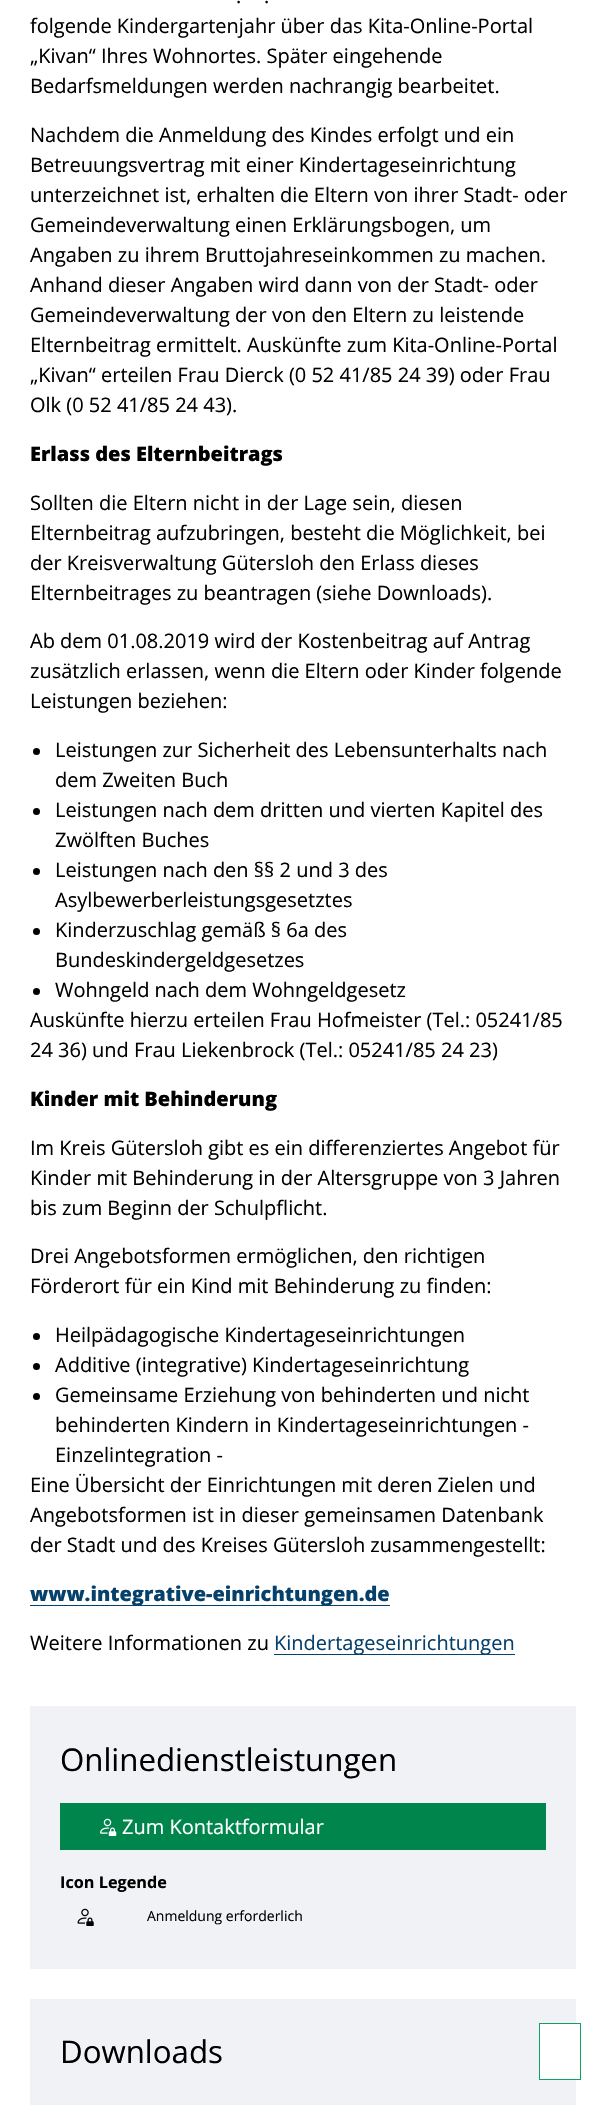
static SkFont makeFont(const char* family, int weight, float size, bool italic = false) {
  SkFontStyle style(weight, SkFontStyle::kNormal_Width,
    italic ? SkFontStyle::kItalic_Slant : SkFontStyle::kUpright_Slant);
  SkFont result(fontMgr->matchFamilyStyle(family, style), size);
  result.setSubpixel(true);
  return result;
}

static void text(SkCanvas* c, const char* s, float x, float y, const SkFont& font, SkColor color) {
  SkPaint ink(SkColor4f::FromColor(color));
  ink.setAntiAlias(true);
  c->drawString(s, x, y, font, ink);
}

static void box(SkCanvas* c, float l, float t, float r, float b, SkColor color) {
  SkPaint ink(SkColor4f::FromColor(color));
  ink.setAntiAlias(true);
  c->drawRect(SkRect::MakeLTRB(l, t, r, b), ink);
}

static void picture(SkCanvas* c, const char* path, float l, float t, float r, float b) {
  auto image = SkImages::DeferredFromEncodedData(SkData::MakeFromFileName(path));
  c->drawImageRect(image, SkRect::MakeLTRB(l, t, r, b), SkSamplingOptions());
}

void draw(SkCanvas* c) {
  SkPaint paint;
  paint.setAntiAlias(true);
  c->clear(0xffffffff);
  SkFont face1 = makeFont("Open Sans", 400, 20);
  text(c, ".", 236, 3, face1, 0xff000000);
  text(c, ".", 264, 3, face1, 0xff000000);
  text(c, "folgende Kindergartenjahr über das Kita-Online-Portal", 30, 33, face1, 0xff000000);
  text(c, "„Kivan“ Ihres Wohnortes. Später eingehende", 30, 63, face1, 0xff000000);
  text(c, "Bedarfsmeldungen werden nachrangig bearbeitet.", 30, 93, face1, 0xff000000);
  text(c, "Nachdem die Anmeldung des Kindes erfolgt und ein", 30, 142, face1, 0xff000000);
  text(c, "Betreuungsvertrag mit einer Kindertageseinrichtung", 30, 172, face1, 0xff000000);
  text(c, "unterzeichnet ist, erhalten die Eltern von ihrer Stadt- oder", 30, 202, face1, 0xff000000);
  text(c, "Gemeindeverwaltung einen Erklärungsbogen, um", 30, 232, face1, 0xff000000);
  text(c, "Angaben zu ihrem Bruttojahreseinkommen zu machen.", 30, 262, face1, 0xff000000);
  text(c, "Anhand dieser Angaben wird dann von der Stadt- oder", 30, 292, face1, 0xff000000);
  text(c, "Gemeindeverwaltung der von den Eltern zu leistende", 30, 322, face1, 0xff000000);
  text(c, "Elternbeitrag ermittelt. Auskünfte zum Kita-Online-Portal", 30, 352, face1, 0xff000000);
  text(c, "„Kivan“ erteilen Frau Dierck (0 52 41/85 24 39) oder Frau", 30, 382, face1, 0xff000000);
  text(c, "Olk (0 52 41/85 24 43).", 30, 412, face1, 0xff000000);
  SkFont face2 = makeFont("Open Sans", 800, 20);
  text(c, "Erlass des Elternbeitrags", 30, 461, face2, 0xff000000);
  text(c, "Sollten die Eltern nicht in der Lage sein, diesen", 30, 510, face1, 0xff000000);
  text(c, "Elternbeitrag aufzubringen, besteht die Möglichkeit, bei", 30, 540, face1, 0xff000000);
  text(c, "der Kreisverwaltung Gütersloh den Erlass dieses", 30, 570, face1, 0xff000000);
  text(c, "Elternbeitrages zu beantragen (siehe Downloads).", 30, 600, face1, 0xff000000);
  text(c, "Ab dem 01.08.2019 wird der Kostenbeitrag auf Antrag", 30, 648, face1, 0xff000000);
  text(c, "zusätzlich erlassen, wenn die Eltern oder Kinder folgende", 30, 678, face1, 0xff000000);
  text(c, "Leistungen beziehen:", 30, 708, face1, 0xff000000);
  paint.setColor(0xff000000);
  c->drawCircle(36.5f, 751.5f, 3.5f, paint);
  text(c, "Leistungen zur Sicherheit des Lebensunterhalts nach", 55, 757, face1, 0xff000000);
  text(c, "dem Zweiten Buch", 55, 787, face1, 0xff000000);
  c->drawCircle(36.5f, 811.5f, 3.5f, paint);
  text(c, "Leistungen nach dem dritten und vierten Kapitel des", 55, 817, face1, 0xff000000);
  text(c, "Zwölften Buches", 55, 847, face1, 0xff000000);
  c->drawCircle(36.5f, 871.5f, 3.5f, paint);
  text(c, "Leistungen nach den §§ 2 und 3 des", 55, 877, face1, 0xff000000);
  text(c, "Asylbewerberleistungsgesetztes", 55, 907, face1, 0xff000000);
  c->drawCircle(36.5f, 931.5f, 3.5f, paint);
  text(c, "Kinderzuschlag gemäß § 6a des", 55, 937, face1, 0xff000000);
  text(c, "Bundeskindergeldgesetzes", 55, 967, face1, 0xff000000);
  c->drawCircle(36.5f, 991.5f, 3.5f, paint);
  text(c, "Wohngeld nach dem Wohngeldgesetz", 55, 997, face1, 0xff000000);
  text(c, "Auskünfte hierzu erteilen Frau Hofmeister (Tel.: 05241/85", 30, 1027, face1, 0xff000000);
  text(c, "24 36) und Frau Liekenbrock (Tel.: 05241/85 24 23)", 30, 1057, face1, 0xff000000);
  text(c, "Kinder mit Behinderung", 30, 1106, face2, 0xff000000);
  text(c, "Im Kreis Gütersloh gibt es ein differenziertes Angebot für", 30, 1155, face1, 0xff000000);
  text(c, "Kinder mit Behinderung in der Altersgruppe von 3 Jahren", 30, 1185, face1, 0xff000000);
  text(c, "bis zum Beginn der Schulpflicht.", 30, 1215, face1, 0xff000000);
  text(c, "Drei Angebotsformen ermöglichen, den richtigen", 30, 1263, face1, 0xff000000);
  text(c, "Förderort für ein Kind mit Behinderung zu finden:", 30, 1293, face1, 0xff000000);
  c->drawCircle(36.5f, 1336.5f, 3.5f, paint);
  text(c, "Heilpädagogische Kindertageseinrichtungen", 55, 1342, face1, 0xff000000);
  c->drawCircle(36.5f, 1366.5f, 3.5f, paint);
  text(c, "Additive (integrative) Kindertageseinrichtung", 55, 1372, face1, 0xff000000);
  c->drawCircle(36.5f, 1396.5f, 3.5f, paint);
  text(c, "Gemeinsame Erziehung von behinderten und nicht", 55, 1402, face1, 0xff000000);
  text(c, "behinderten Kindern in Kindertageseinrichtungen -", 55, 1432, face1, 0xff000000);
  text(c, "Einzelintegration -", 55, 1462, face1, 0xff000000);
  text(c, "Eine Übersicht der Einrichtungen mit deren Zielen und", 30, 1492, face1, 0xff000000);
  text(c, "Angebotsformen ist in dieser gemeinsamen Datenbank", 30, 1522, face1, 0xff000000);
  text(c, "der Stadt und des Kreises Gütersloh zusammengestellt:", 30, 1552, face1, 0xff000000);
  box(c, 30, 1605, 390, 1606, 0xff06416b);
  text(c, "www.integrative-einrichtungen.de", 30, 1601, face2, 0xff06416b);
  text(c, "Weitere Informationen zu", 30, 1650, face1, 0xff000000);
  box(c, 274, 1654, 515, 1655, 0xff06416b);
  text(c, "Kindertageseinrichtungen", 274, 1650, face1, 0xff06416b);
  box(c, 30, 1706, 576, 1969, 0xfff1f2f5);
  SkFont face3 = makeFont("Open Sans", 400, 31.25f);
  text(c, "Onlinedienstleistungen", 60, 1771, face3, 0xff000000);
  box(c, 60, 1803, 546, 1850, 0xff00854c);
  picture(c, "img_01.png", 100, 1818, 117, 1836);
  text(c, "Zum Kontaktformular", 122, 1834, face1, 0xffffffff);
  SkFont face4 = makeFont("Open Sans", 700, 16.25f);
  text(c, "Icon Legende", 60, 1888, face4, 0xff000000);
  picture(c, "img_02.png", 77, 1908, 94, 1926);
  SkFont face5 = makeFont("Open Sans", 400, 14);
  text(c, "Anmeldung erforderlich", 147, 1921, face5, 0xff000000);
  box(c, 30, 1999, 576, 2105, 0xfff1f2f5);
  text(c, "Downloads", 60, 2063, face3, 0xff000000);
  box(c, 540, 2024, 576, 2079, 0xffffffff);
  paint.setStyle(SkPaint::kStroke_Style);
  paint.setStrokeWidth(1);
  paint.setColor(0xff0da262);
  c->drawRect(SkRect::MakeLTRB(539.5f, 2023.5f, 580.5f, 2079.5f), paint);
}
